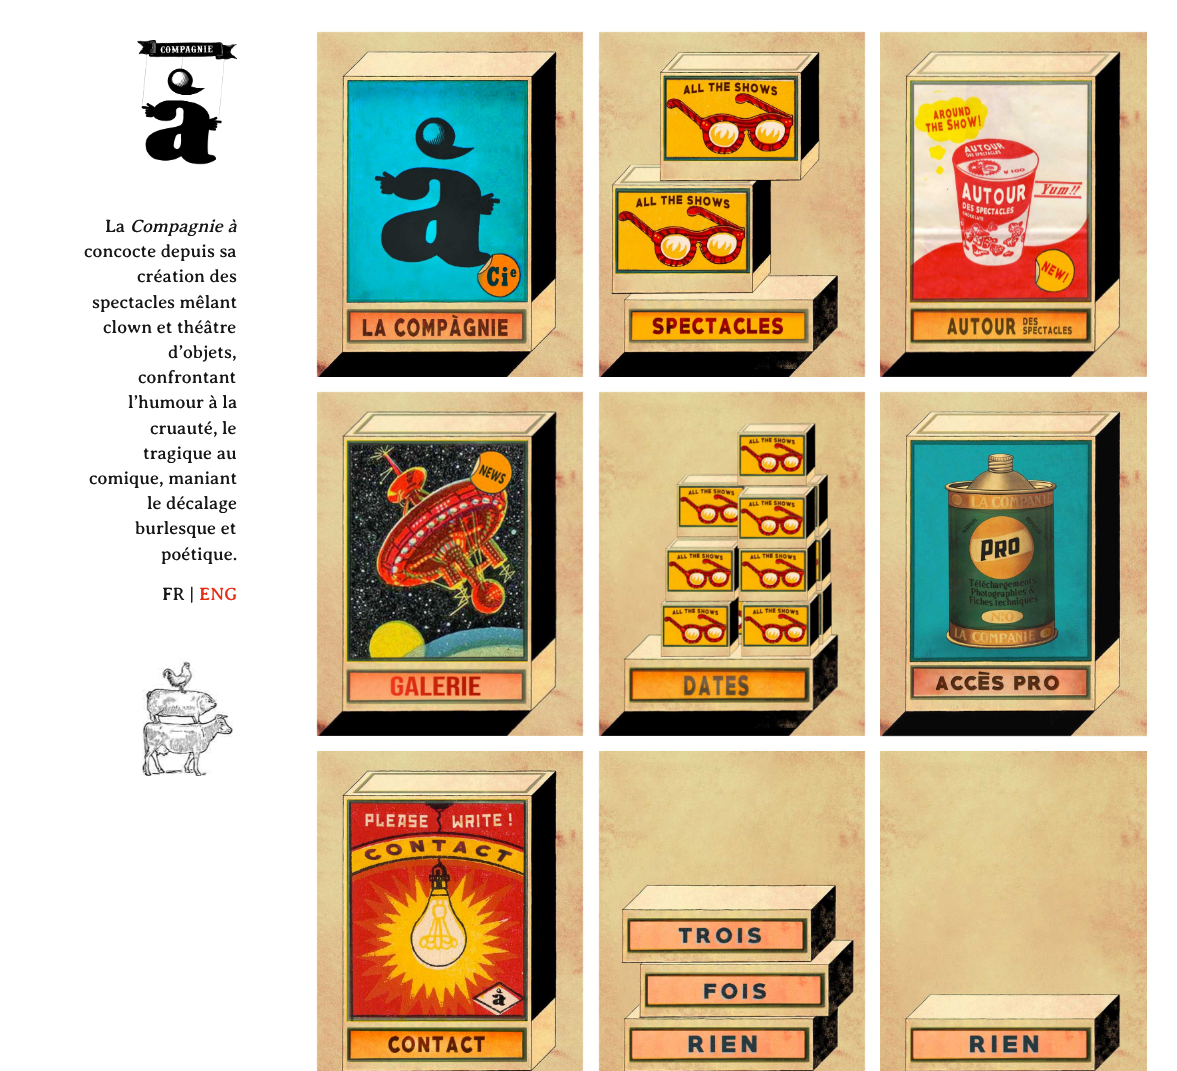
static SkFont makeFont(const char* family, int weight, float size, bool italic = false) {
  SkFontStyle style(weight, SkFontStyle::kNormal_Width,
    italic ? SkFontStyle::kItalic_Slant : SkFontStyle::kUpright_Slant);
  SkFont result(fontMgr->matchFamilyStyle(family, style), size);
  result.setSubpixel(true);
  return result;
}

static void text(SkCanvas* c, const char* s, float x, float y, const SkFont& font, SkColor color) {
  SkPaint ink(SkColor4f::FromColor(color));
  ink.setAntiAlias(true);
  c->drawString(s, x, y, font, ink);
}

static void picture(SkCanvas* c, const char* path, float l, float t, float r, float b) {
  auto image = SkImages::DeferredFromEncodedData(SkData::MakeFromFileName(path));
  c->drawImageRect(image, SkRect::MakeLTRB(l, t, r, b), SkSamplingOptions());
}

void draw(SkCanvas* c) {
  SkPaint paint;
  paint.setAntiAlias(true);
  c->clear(0xffffffff);
  picture(c, "img_01.png", 136, 40, 237, 165);
  SkFont face1 = makeFont("Averia Serif Libre", 400, 18);
  text(c, "La", 105, 232, face1, 0xff161616);
  SkFont face2 = makeFont("Averia Serif Libre", 400, 18, true);
  text(c, "Compagnie à", 130, 232, face2, 0xff161616);
  text(c, "concocte depuis sa", 84, 257, face1, 0xff161616);
  text(c, "création des", 137, 282, face1, 0xff161616);
  text(c, "spectacles mêlant", 92, 308, face1, 0xff161616);
  text(c, "clown et théâtre", 103, 333, face1, 0xff161616);
  text(c, "d’objets,", 168, 358, face1, 0xff161616);
  text(c, "confrontant", 138, 383, face1, 0xff161616);
  text(c, "l’humour à la", 128, 408, face1, 0xff161616);
  text(c, "cruauté, le", 150, 434, face1, 0xff161616);
  text(c, "tragique au", 143, 459, face1, 0xff161616);
  text(c, "comique, maniant", 89, 484, face1, 0xff161616);
  text(c, "le décalage", 147, 509, face1, 0xff161616);
  text(c, "burlesque et", 135, 534, face1, 0xff161616);
  text(c, "poétique.", 161, 560, face1, 0xff161616);
  text(c, "FR |", 162, 600, face1, 0xff161616);
  text(c, "ENG", 199, 600, face1, 0xffe52f12);
  picture(c, "img_02.png", 142, 658, 233, 776);
  picture(c, "img_03.png", 316, 31, 584, 377);
  picture(c, "img_04.png", 598, 31, 866, 377);
  picture(c, "img_05.png", 880, 31, 1147, 377);
  picture(c, "img_06.png", 316, 391, 584, 736);
  picture(c, "img_07.png", 598, 391, 866, 736);
  picture(c, "img_08.png", 880, 391, 1147, 737);
  picture(c, "img_09.png", 316, 751, 584, 1071);
  picture(c, "img_10.png", 598, 751, 866, 1071);
  picture(c, "img_11.png", 880, 751, 1147, 1071);
}
